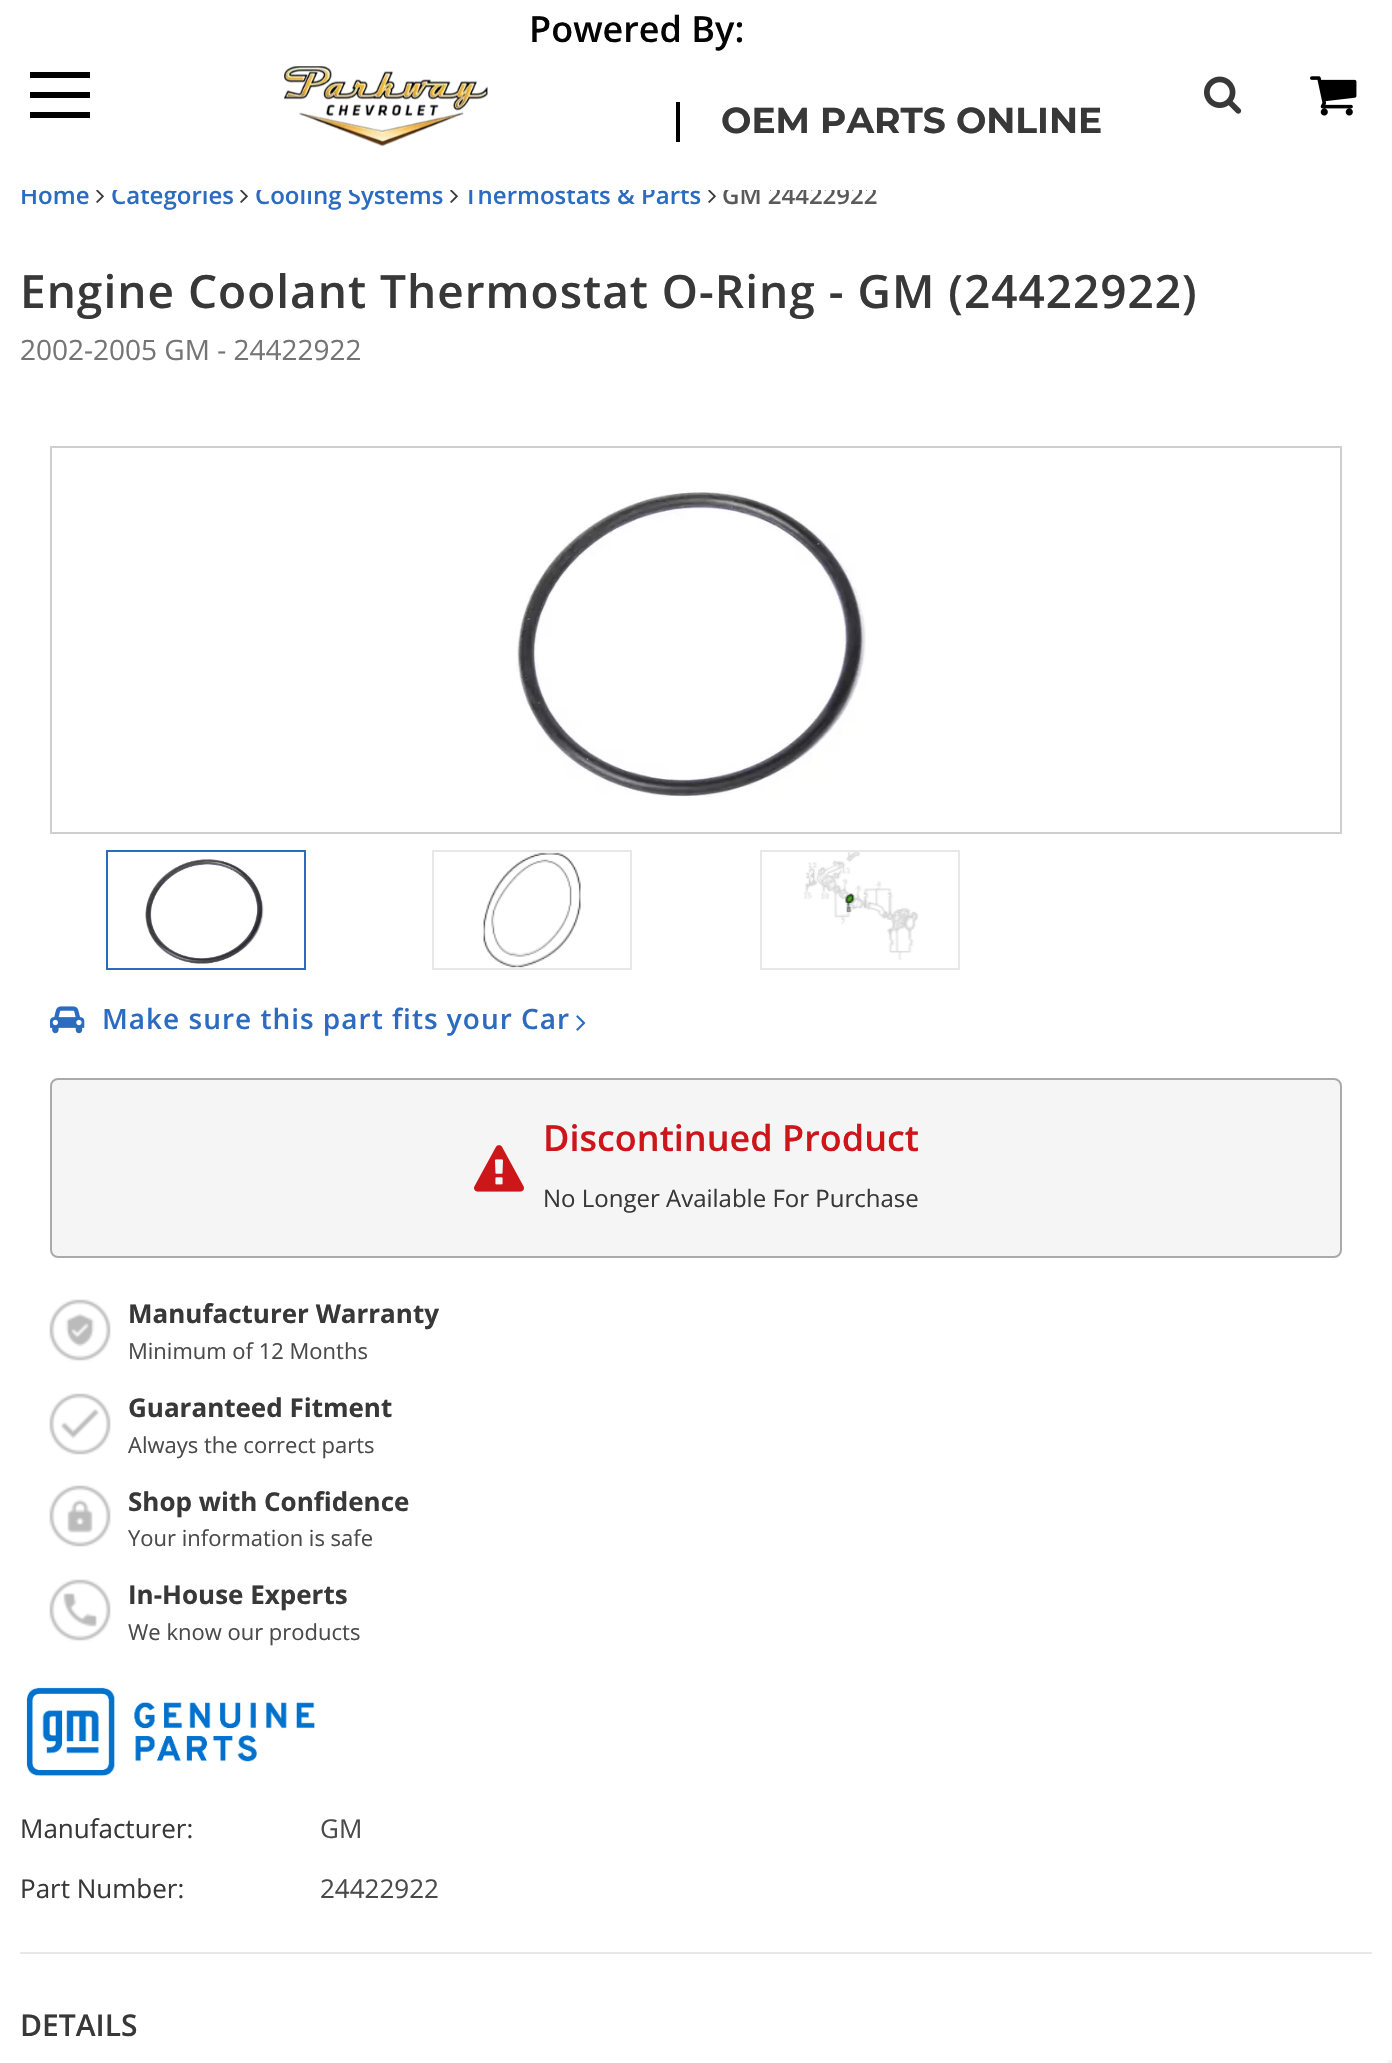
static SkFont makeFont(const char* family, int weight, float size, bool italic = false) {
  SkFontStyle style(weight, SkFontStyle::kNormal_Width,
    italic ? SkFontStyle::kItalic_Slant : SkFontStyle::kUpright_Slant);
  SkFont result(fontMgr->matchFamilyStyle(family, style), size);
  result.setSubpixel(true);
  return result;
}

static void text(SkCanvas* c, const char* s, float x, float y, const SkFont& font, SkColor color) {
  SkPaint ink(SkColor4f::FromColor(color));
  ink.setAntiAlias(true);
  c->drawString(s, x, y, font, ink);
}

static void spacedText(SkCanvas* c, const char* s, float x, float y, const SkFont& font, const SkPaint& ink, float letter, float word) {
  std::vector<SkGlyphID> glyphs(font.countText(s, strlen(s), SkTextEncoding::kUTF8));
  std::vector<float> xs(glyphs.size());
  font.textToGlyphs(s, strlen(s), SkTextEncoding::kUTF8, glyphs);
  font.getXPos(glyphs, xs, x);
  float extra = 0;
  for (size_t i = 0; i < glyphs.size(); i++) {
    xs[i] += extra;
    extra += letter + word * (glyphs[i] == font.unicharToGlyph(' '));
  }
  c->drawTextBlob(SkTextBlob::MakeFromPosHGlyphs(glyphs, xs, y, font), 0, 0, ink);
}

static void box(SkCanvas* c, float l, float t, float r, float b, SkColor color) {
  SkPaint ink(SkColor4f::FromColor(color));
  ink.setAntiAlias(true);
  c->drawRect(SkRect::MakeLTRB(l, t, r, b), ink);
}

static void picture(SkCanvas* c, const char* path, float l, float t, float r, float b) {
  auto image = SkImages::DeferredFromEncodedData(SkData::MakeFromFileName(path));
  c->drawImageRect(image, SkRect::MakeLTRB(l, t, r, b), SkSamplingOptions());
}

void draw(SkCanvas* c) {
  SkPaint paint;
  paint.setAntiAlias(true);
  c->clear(0xffffffff);
  SkFont face1 = makeFont("Open Sans", 600, 24);
  text(c, "Home", 20, 204, face1, 0xff2b6cc0);
  text(c, "Categories", 111, 204, face1, 0xff2b6cc0);
  text(c, "Cooling Systems", 255, 204, face1, 0xff2b6cc0);
  text(c, "Thermostats & Parts", 464, 204, face1, 0xff2b6cc0);
  text(c, "GM 24422922", 722, 204, face1, 0xff5a5a5a);
  box(c, 22, 185, 876, 190, 0xffffffff);
  box(c, 30, 92, 90, 98, 0xff000000);
  box(c, 30, 72, 90, 78, 0xff000000);
  box(c, 30, 112, 90, 118, 0xff000000);
  SkFont face2 = makeFont("Open Sans", 600, 36);
  text(c, "Powered By:", 529, 42, face2, 0xff050505);
  picture(c, "img_01.png", 284, 66, 488, 146);
  box(c, 676, 102, 680, 142, 0xff000000);
  SkFont face3 = makeFont("Montserrat", 700, 36);
  text(c, "OEM PARTS ONLINE", 721, 133, face3, 0xff383838);
  picture(c, "img_02.png", 1204, 76, 1242, 114);
  picture(c, "img_03.png", 1310, 76, 1357, 116);
  picture(c, "img_04.png", 96, 190, 104, 203);
  picture(c, "img_04.png", 240, 190, 248, 203);
  picture(c, "img_04.png", 450, 190, 458, 203);
  picture(c, "img_04.png", 708, 190, 716, 203);
  SkFont face4 = makeFont("Open Sans", 600, 46);
  paint.setColor(0xff383838);
  spacedText(c, "Engine Coolant Thermostat O-Ring - GM (24422922)", 20, 308, face4, paint, 1, 0);
  SkFont face5 = makeFont("Open Sans", 400, 28);
  text(c, "2002-2005 GM - 24422922", 20, 360, face5, 0xff757575);
  paint.setStyle(SkPaint::kStroke_Style);
  paint.setStrokeWidth(2);
  paint.setColor(0xffcfcfcf);
  c->drawRect(SkRect::MakeLTRB(51, 447, 1341, 833), paint);
  picture(c, "img_05.png", 516, 491, 866, 797);
  paint.setColor(0xff2b6cc0);
  c->drawRect(SkRect::MakeLTRB(107, 851, 305, 969), paint);
  picture(c, "img_06.png", 145, 859, 264, 964);
  paint.setColor(0xffe8e8e8);
  c->drawRect(SkRect::MakeLTRB(433, 851, 631, 969), paint);
  picture(c, "img_07.png", 483, 852, 581, 968);
  c->drawRect(SkRect::MakeLTRB(761, 851, 959, 969), paint);
  picture(c, "img_08.png", 803, 852, 919, 960);
  picture(c, "img_09.png", 50, 1006, 85, 1034);
  SkFont face6 = makeFont("Open Sans", 600, 28);
  paint.setStyle(SkPaint::kFill_Style);
  paint.setColor(0xff2b6cc0);
  spacedText(c, "Make sure this part fits your Car", 102, 1029, face6, paint, 1, 0);
  picture(c, "img_10.png", 576, 1015, 586, 1031);
  paint.setColor(0xfff5f5f5);
  c->drawRoundRect(SkRect::MakeLTRB(51, 1079, 1341, 1257), 7, 7, paint);
  paint.setStyle(SkPaint::kStroke_Style);
  paint.setColor(0xffaaaaaa);
  c->drawRoundRect(SkRect::MakeLTRB(51, 1079, 1341, 1257), 7, 7, paint);
  picture(c, "img_11.png", 474, 1145, 524, 1192);
  text(c, "Discontinued Product", 543, 1151, face2, 0xffcc1619);
  SkFont face7 = makeFont("Open Sans", 400, 24);
  text(c, "No Longer Available For Purchase", 543, 1207, face7, 0xff383838);
  picture(c, "img_12.png", 49, 1299, 111, 1361);
  SkFont face8 = makeFont("Open Sans", 700, 26);
  text(c, "Manufacturer Warranty", 128, 1323, face8, 0xff383838);
  SkFont face9 = makeFont("Open Sans", 400, 22);
  text(c, "Minimum of 12 Months", 128, 1359, face9, 0xff4a4a4a);
  picture(c, "img_13.png", 49, 1393, 111, 1455);
  text(c, "Guaranteed Fitment", 128, 1417, face8, 0xff383838);
  text(c, "Always the correct parts", 128, 1453, face9, 0xff4a4a4a);
  picture(c, "img_14.png", 49, 1485, 111, 1547);
  text(c, "Shop with Confidence", 128, 1511, face8, 0xff383838);
  text(c, "Your information is safe", 128, 1546, face9, 0xff4a4a4a);
  picture(c, "img_15.png", 49, 1579, 111, 1641);
  text(c, "In-House Experts", 128, 1604, face8, 0xff383838);
  text(c, "We know our products", 128, 1640, face9, 0xff4a4a4a);
  picture(c, "img_16.png", 26, 1687, 316, 1777);
  box(c, 20, 1952, 1372, 1954, 0xffe8e8e8);
  SkFont face10 = makeFont("Open Sans", 400, 26);
  text(c, "Manufacturer:", 20, 1838, face10, 0xff383838);
  text(c, "GM", 320, 1838, face10, 0xff4a4a4a);
  text(c, "Part Number:", 20, 1898, face10, 0xff383838);
  text(c, "24422922", 320, 1898, face10, 0xff4a4a4a);
  SkFont face11 = makeFont("Open Sans", 600, 30);
  text(c, "DETAILS", 20, 2036, face11, 0xff383838);
  box(c, 1388, 2060, 1392, 2063, 0xfff5f5f5);
}
